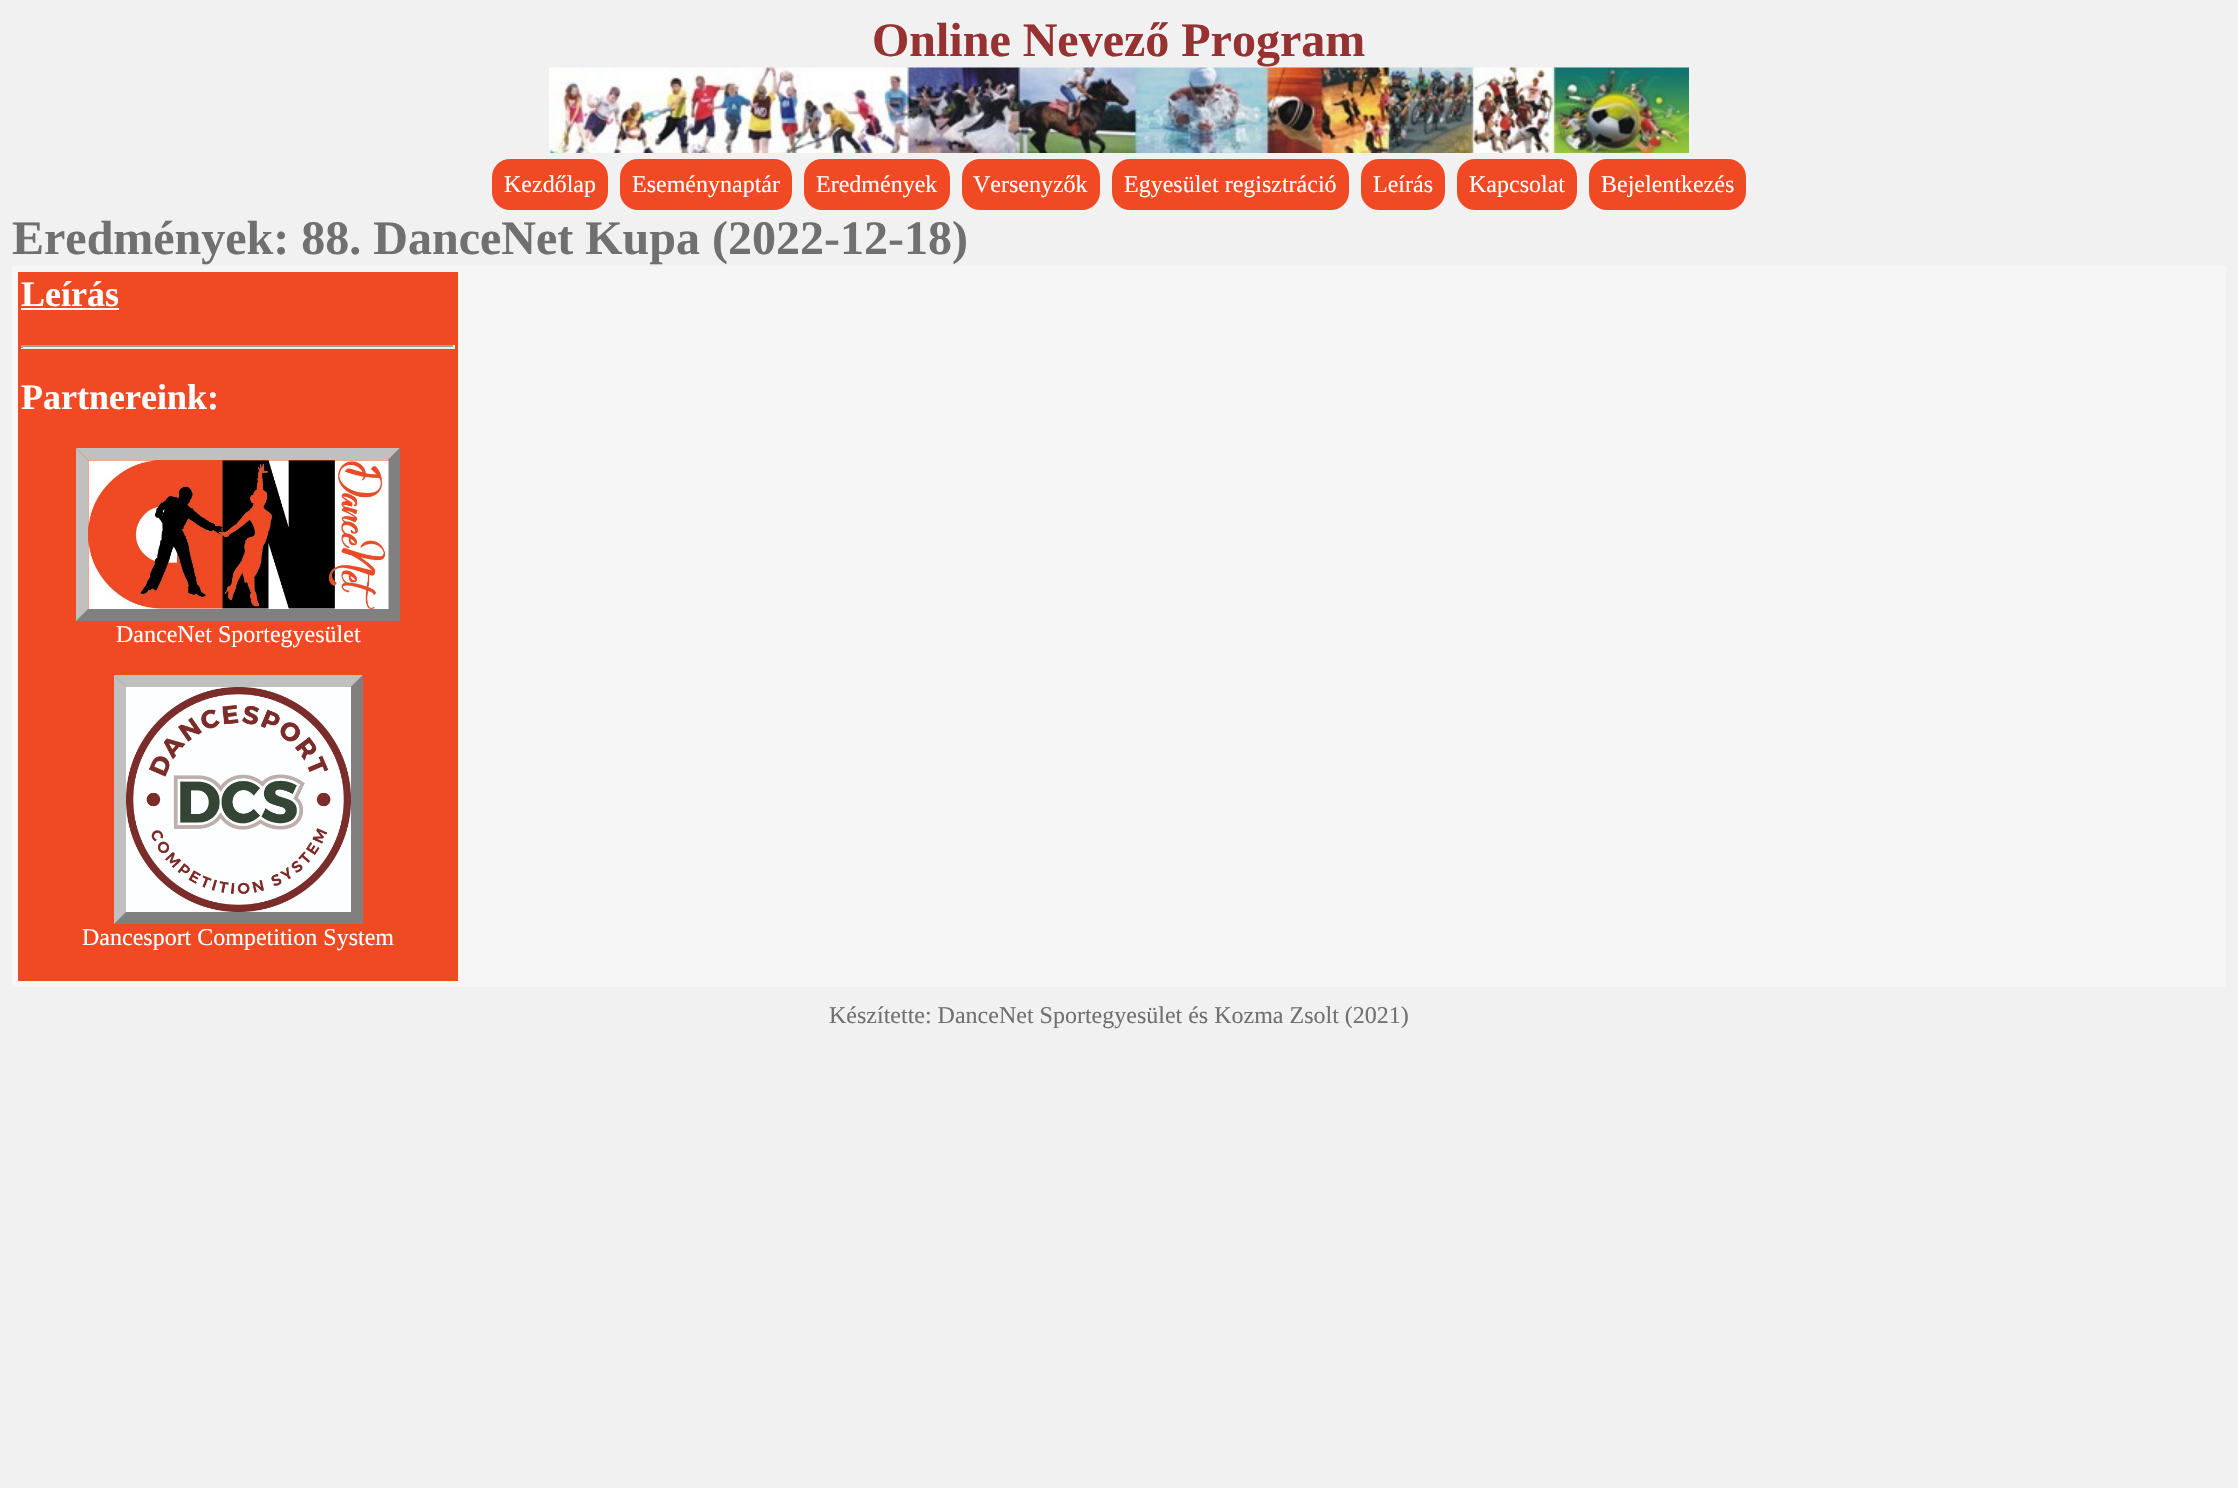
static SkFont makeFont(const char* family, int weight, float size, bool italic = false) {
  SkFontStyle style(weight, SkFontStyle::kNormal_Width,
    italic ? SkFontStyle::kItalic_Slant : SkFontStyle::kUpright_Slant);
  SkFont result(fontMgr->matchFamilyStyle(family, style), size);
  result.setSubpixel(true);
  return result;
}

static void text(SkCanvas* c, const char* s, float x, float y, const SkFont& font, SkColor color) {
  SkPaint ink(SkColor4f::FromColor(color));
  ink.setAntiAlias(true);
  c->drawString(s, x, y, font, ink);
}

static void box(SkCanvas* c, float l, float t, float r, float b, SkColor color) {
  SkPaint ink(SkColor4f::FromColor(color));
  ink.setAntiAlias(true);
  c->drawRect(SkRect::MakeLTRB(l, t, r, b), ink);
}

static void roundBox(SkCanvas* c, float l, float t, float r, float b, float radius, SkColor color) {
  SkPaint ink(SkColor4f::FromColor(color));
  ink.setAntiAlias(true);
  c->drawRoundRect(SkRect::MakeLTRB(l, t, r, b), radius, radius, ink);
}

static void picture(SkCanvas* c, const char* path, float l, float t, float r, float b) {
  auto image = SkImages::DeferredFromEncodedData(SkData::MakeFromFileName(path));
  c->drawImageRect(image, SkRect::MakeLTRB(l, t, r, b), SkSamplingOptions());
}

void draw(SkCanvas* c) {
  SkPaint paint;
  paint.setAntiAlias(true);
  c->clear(0xfff1f1f1);
  SkFont face1 = makeFont("Liberation Serif", 700, 48);
  text(c, "Online Nevező Program", 872, 56, face1, 0xff963232);
  picture(c, "img_01.png", 549, 67, 1689, 153);
  roundBox(c, 492, 159, 608, 210, 18, 0xfff04a24);
  SkFont face2 = makeFont("Liberation Serif", 400, 24);
  text(c, "Kezdőlap", 504, 192, face2, 0xffffffff);
  roundBox(c, 620, 159, 792, 210, 18, 0xfff04a24);
  text(c, "Eseménynaptár", 632, 192, face2, 0xffffffff);
  roundBox(c, 804, 159, 950, 210, 18, 0xfff04a24);
  text(c, "Eredmények", 816, 192, face2, 0xffffffff);
  roundBox(c, 962, 159, 1100, 210, 18, 0xfff04a24);
  text(c, "Versenyzők", 973, 192, face2, 0xffffffff);
  roundBox(c, 1112, 159, 1349, 210, 18, 0xfff04a24);
  text(c, "Egyesület regisztráció", 1124, 192, face2, 0xffffffff);
  roundBox(c, 1361, 159, 1445, 210, 18, 0xfff04a24);
  text(c, "Leírás", 1373, 192, face2, 0xffffffff);
  roundBox(c, 1457, 159, 1577, 210, 18, 0xfff04a24);
  text(c, "Kapcsolat", 1469, 192, face2, 0xffffffff);
  roundBox(c, 1589, 159, 1746, 210, 18, 0xfff04a24);
  text(c, "Bejelentkezés", 1601, 192, face2, 0xffffffff);
  text(c, "Eredmények: 88. DanceNet Kupa (2022-12-18)", 12, 254, face1, 0xff707070);
  box(c, 12, 266, 2226, 987, 0xfff6f6f6);
  box(c, 18, 272, 458, 981, 0xfff04a24);
  SkFont face3 = makeFont("Liberation Serif", 700, 36);
  text(c, "Leírás", 21, 306, face3, 0xffffffff);
  box(c, 21, 308, 119, 310, 0xffffffff);
  box(c, 21, 345, 455, 347, 0xff9f9f9f);
  box(c, 453, 345, 455, 348, 0xffeeeeee);
  box(c, 21, 347, 455, 349, 0xffeeeeee);
  box(c, 21, 345, 23, 348, 0xff9f9f9f);
  text(c, "Partnereink:", 21, 409, face3, 0xffffffff);
  paint.setColor(0xffc0c0c0);
  c->drawPath(SkPathBuilder().moveTo(76, 448).lineTo(400, 448).lineTo(388, 460).lineTo(88, 460).close().detach(), paint);
  paint.setColor(0xff808080);
  c->drawPath(SkPathBuilder().moveTo(400, 448).lineTo(400, 621).lineTo(388, 609).lineTo(388, 460).close().detach(), paint);
  c->drawPath(SkPathBuilder().moveTo(400, 621).lineTo(76, 621).lineTo(88, 609).lineTo(388, 609).close().detach(), paint);
  paint.setColor(0xffc0c0c0);
  c->drawPath(SkPathBuilder().moveTo(76, 621).lineTo(76, 448).lineTo(88, 460).lineTo(88, 609).close().detach(), paint);
  picture(c, "img_02.png", 88, 460, 389, 609);
  text(c, "DanceNet Sportegyesület", 116, 642, face2, 0xffffffff);
  c->drawPath(SkPathBuilder().moveTo(114, 675).lineTo(363, 675).lineTo(351, 687).lineTo(126, 687).close().detach(), paint);
  paint.setColor(0xff808080);
  c->drawPath(SkPathBuilder().moveTo(363, 675).lineTo(363, 924).lineTo(351, 912).lineTo(351, 687).close().detach(), paint);
  c->drawPath(SkPathBuilder().moveTo(363, 924).lineTo(114, 924).lineTo(126, 912).lineTo(351, 912).close().detach(), paint);
  paint.setColor(0xffc0c0c0);
  c->drawPath(SkPathBuilder().moveTo(114, 924).lineTo(114, 675).lineTo(126, 687).lineTo(126, 912).close().detach(), paint);
  picture(c, "img_03.png", 126, 687, 351, 912);
  text(c, "Dancesport Competition System", 82, 945, face2, 0xffffffff);
  text(c, "Készítette: DanceNet Sportegyesület és Kozma Zsolt (2021)", 829, 1023, face2, 0xff707070);
}
